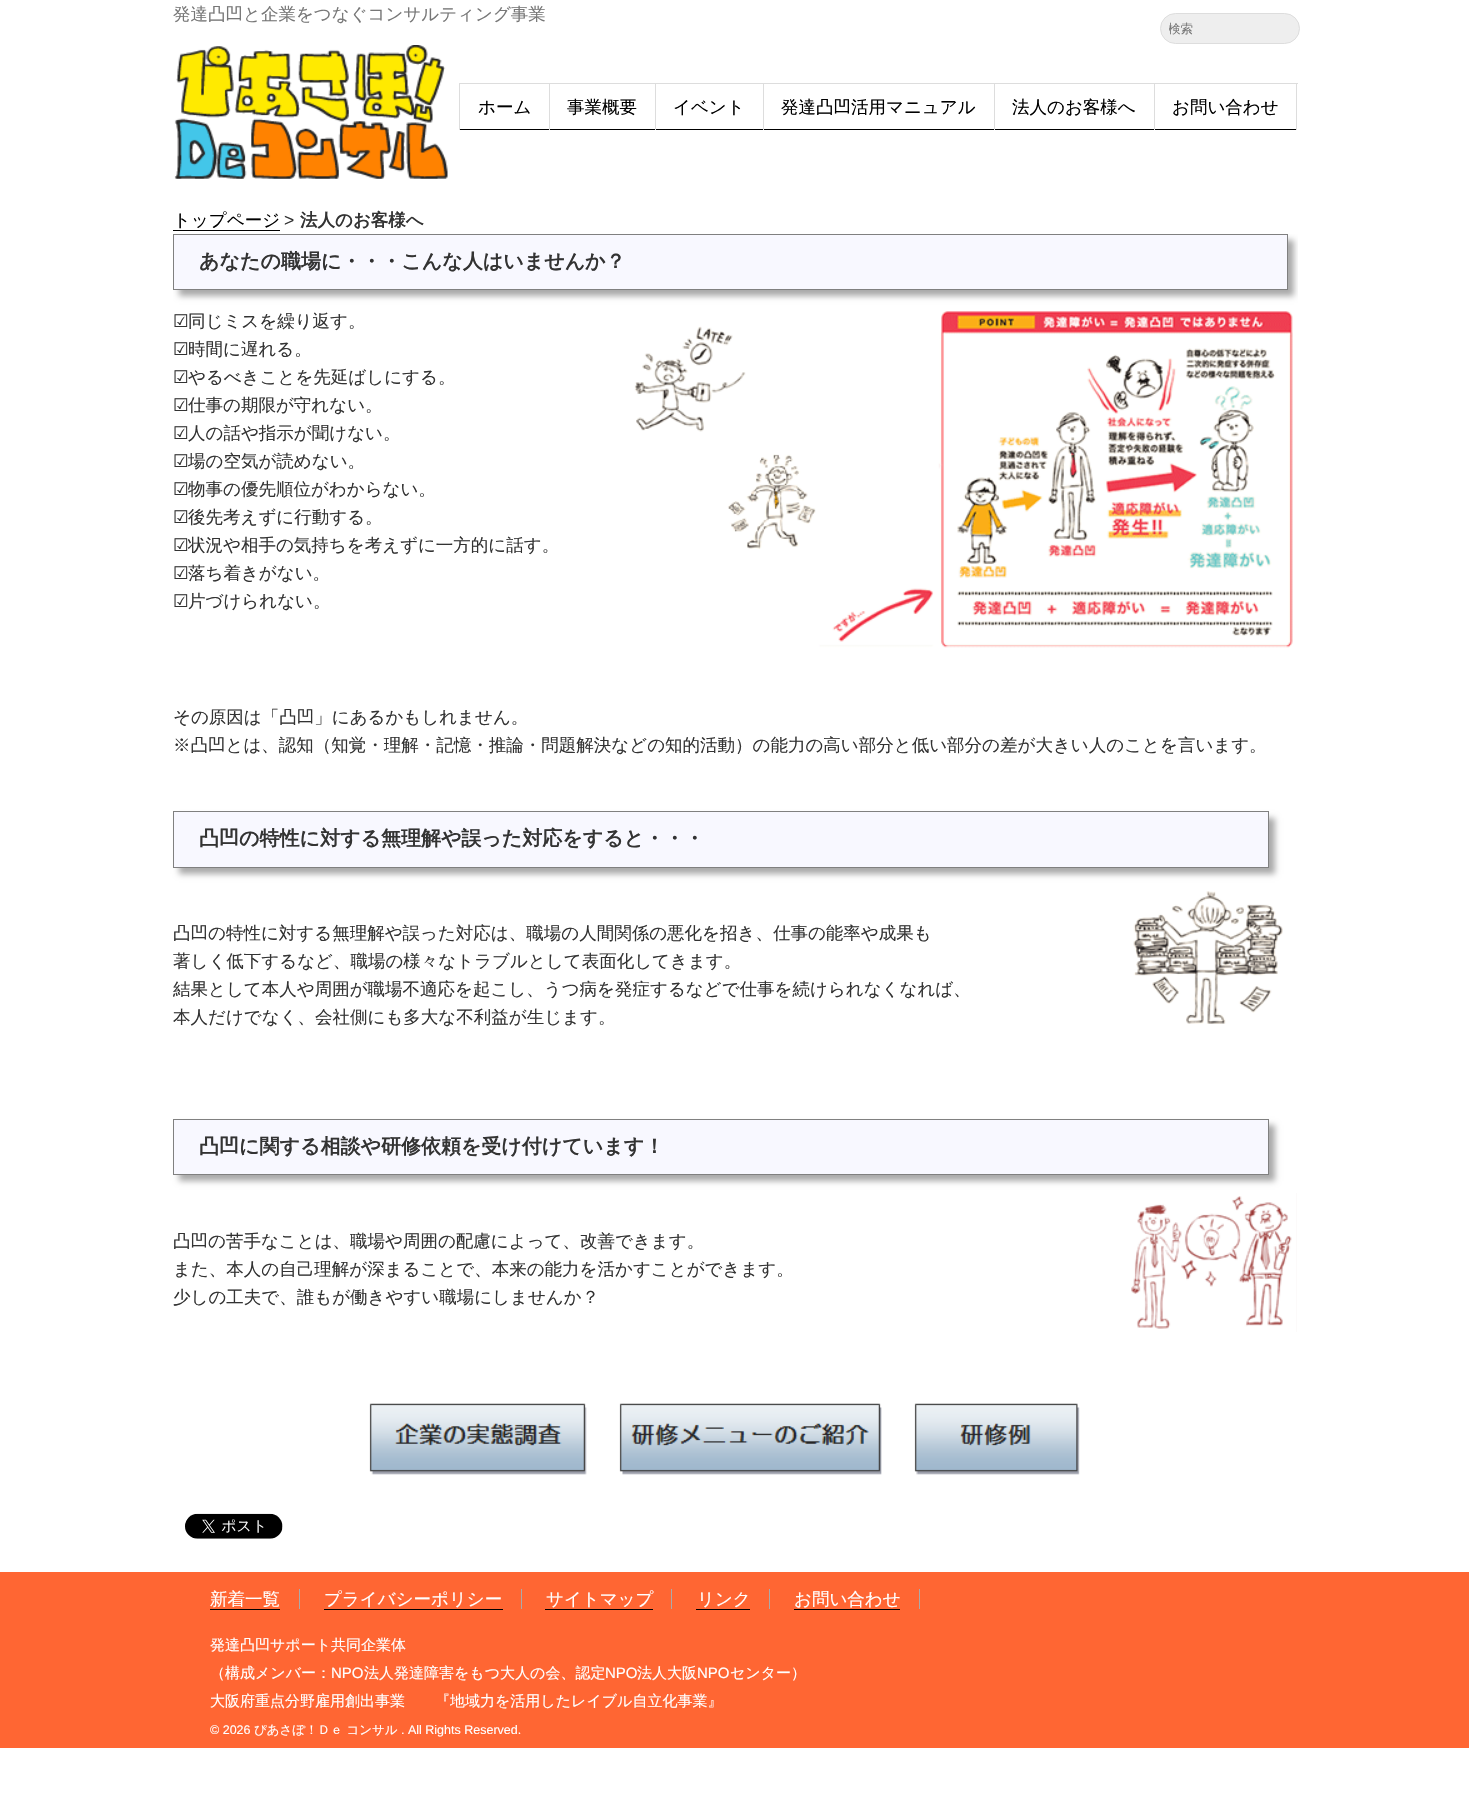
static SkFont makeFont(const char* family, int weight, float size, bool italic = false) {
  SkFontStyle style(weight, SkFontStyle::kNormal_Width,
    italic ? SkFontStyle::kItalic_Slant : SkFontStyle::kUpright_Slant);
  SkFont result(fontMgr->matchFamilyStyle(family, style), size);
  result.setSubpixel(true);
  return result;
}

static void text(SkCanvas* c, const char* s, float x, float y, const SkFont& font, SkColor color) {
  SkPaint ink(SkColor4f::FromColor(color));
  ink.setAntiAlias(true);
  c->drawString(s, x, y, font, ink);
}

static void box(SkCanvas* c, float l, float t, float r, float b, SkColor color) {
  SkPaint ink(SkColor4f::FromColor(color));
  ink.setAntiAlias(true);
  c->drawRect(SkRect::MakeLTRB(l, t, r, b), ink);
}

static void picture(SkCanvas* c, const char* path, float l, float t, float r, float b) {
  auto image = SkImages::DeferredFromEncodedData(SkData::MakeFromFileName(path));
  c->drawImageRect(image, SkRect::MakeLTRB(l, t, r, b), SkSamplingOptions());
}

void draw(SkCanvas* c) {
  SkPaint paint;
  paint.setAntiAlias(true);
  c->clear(0xffffffff);
  SkFont face1 = makeFont("WenQuanYi Zen Hei", 500, 17.5f);
  text(c, "発達凸凹と企業をつなぐコンサルティング事業", 173, 20, face1, 0xff777777);
  picture(c, "img_01.png", 174, 45, 448, 179);
  paint.setColor(0xffeeeeee);
  c->drawRoundRect(SkRect::MakeLTRB(1160.5f, 13.5f, 1299.5f, 43.5f), 15, 15, paint);
  paint.setStyle(SkPaint::kStroke_Style);
  paint.setStrokeWidth(1);
  paint.setColor(0xffdddddd);
  c->drawRoundRect(SkRect::MakeLTRB(1160.5f, 13.5f, 1299.5f, 43.5f), 15, 15, paint);
  c->save();
  c->clipRect(SkRect::MakeLTRB(1169, 20, 1271, 38));
  SkFont face2 = makeFont("WenQuanYi Zen Hei", 500, 12.5f);
  text(c, "検索", 1168, 33, face2, 0xff777777);
  c->restore();
  box(c, 459, 83, 460, 130, 0xffdddddd);
  box(c, 460, 83, 1298, 84, 0xffdddddd);
  box(c, 549, 83, 550, 130, 0xffdddddd);
  box(c, 460, 129, 549, 130, 0xff000000);
  text(c, "ホーム", 478, 113, face1, 0xff000000);
  box(c, 655, 83, 656, 130, 0xffdddddd);
  box(c, 550, 129, 655, 130, 0xff000000);
  text(c, "事業概要", 567, 113, face1, 0xff000000);
  box(c, 763, 83, 764, 130, 0xffdddddd);
  box(c, 656, 129, 763, 130, 0xff000000);
  text(c, "イベント", 673, 113, face1, 0xff000000);
  box(c, 994, 83, 995, 130, 0xffdddddd);
  box(c, 764, 129, 994, 130, 0xff000000);
  text(c, "発達凸凹活用マニュアル", 781, 113, face1, 0xff000000);
  box(c, 1154, 83, 1155, 130, 0xffdddddd);
  box(c, 995, 129, 1154, 130, 0xff000000);
  text(c, "法人のお客様へ", 1012, 113, face1, 0xff000000);
  box(c, 1296, 83, 1297, 130, 0xffdddddd);
  box(c, 1155, 129, 1296, 130, 0xff000000);
  text(c, "お問い合わせ", 1172, 113, face1, 0xff000000);
  text(c, "トップページ", 173, 226, face1, 0xff000000);
  box(c, 173, 230, 280, 231, 0xff000000);
  SkFont face3 = makeFont("Liberation Sans", 400, 17.5f);
  text(c, ">", 284, 226, face3, 0xff333333);
  SkFont face4 = makeFont("WenQuanYi Zen Hei", 700, 17.5f);
  text(c, "法人のお客様へ", 300, 226, face4, 0xff333333);
  c->save();
  c->clipRect(SkRect::MakeLTRB(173, 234, 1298, 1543));
  paint.setStyle(SkPaint::kFill_Style);
  paint.setColor(0xffaaaaaa);
  paint.setMaskFilter(SkMaskFilter::MakeBlur(kNormal_SkBlurStyle, 3));
  c->drawRect(SkRect::MakeLTRB(179, 240, 1294, 296), paint);
  paint.setMaskFilter(nullptr);
  c->restore();
  paint.setColor(0xfff8f8ff);
  c->drawRect(SkRect::MakeLTRB(173.5f, 234.5f, 1287.5f, 289.5f), paint);
  paint.setStyle(SkPaint::kStroke_Style);
  paint.setColor(0xff808080);
  c->drawRect(SkRect::MakeLTRB(173.5f, 234.5f, 1287.5f, 289.5f), paint);
  SkFont face5 = makeFont("WenQuanYi Zen Hei", 700, 20);
  text(c, "あなたの職場に・・・こんな人はいませんか？", 199, 268, face5, 0xff333333);
  SkFont face6 = makeFont("DejaVu Sans", 400, 17.5f);
  text(c, "☑", 173, 327, face6, 0xff333333);
  text(c, "同じミスを繰り返す。", 188, 327, face1, 0xff333333);
  text(c, "☑", 173, 355, face6, 0xff333333);
  text(c, "時間に遅れる。", 188, 355, face1, 0xff333333);
  text(c, "☑", 173, 383, face6, 0xff333333);
  text(c, "やるべきことを先延ばしにする。", 188, 383, face1, 0xff333333);
  text(c, "☑", 173, 411, face6, 0xff333333);
  text(c, "仕事の期限が守れない。", 188, 411, face1, 0xff333333);
  text(c, "☑", 173, 439, face6, 0xff333333);
  text(c, "人の話や指示が聞けない。", 188, 439, face1, 0xff333333);
  text(c, "☑", 173, 467, face6, 0xff333333);
  text(c, "場の空気が読めない。", 188, 467, face1, 0xff333333);
  text(c, "☑", 173, 495, face6, 0xff333333);
  text(c, "物事の優先順位がわからない。", 188, 495, face1, 0xff333333);
  text(c, "☑", 173, 523, face6, 0xff333333);
  text(c, "後先考えずに行動する。", 188, 523, face1, 0xff333333);
  text(c, "☑", 173, 551, face6, 0xff333333);
  text(c, "状況や相手の気持ちを考えずに一方的に話す。", 188, 551, face1, 0xff333333);
  text(c, "☑", 173, 579, face6, 0xff333333);
  text(c, "落ち着きがない。", 188, 579, face1, 0xff333333);
  text(c, "☑", 173, 607, face6, 0xff333333);
  text(c, "片づけられない。", 188, 607, face1, 0xff333333);
  picture(c, "img_02.png", 634, 311, 1293, 648);
  text(c, "その原因は「凸凹」にあるかもしれません。", 173, 723, face1, 0xff333333);
  text(c, "※凸凹とは、認知（知覚・理解・記憶・推論・問題解決などの知的活動）の能力の高い部分と低い部分の差が大きい人のことを言います。", 173, 751, face1, 0xff333333);
  paint.setStyle(SkPaint::kFill_Style);
  paint.setColor(0xffaaaaaa);
  paint.setMaskFilter(SkMaskFilter::MakeBlur(kNormal_SkBlurStyle, 3));
  c->drawRect(SkRect::MakeLTRB(179, 818, 1275, 874), paint);
  paint.setMaskFilter(nullptr);
  paint.setColor(0xfff8f8ff);
  c->drawRect(SkRect::MakeLTRB(173.5f, 811.5f, 1268.5f, 867.5f), paint);
  paint.setStyle(SkPaint::kStroke_Style);
  paint.setColor(0xff808080);
  c->drawRect(SkRect::MakeLTRB(173.5f, 811.5f, 1268.5f, 867.5f), paint);
  text(c, "凸凹の特性に対する無理解や誤った対応をすると・・・", 199, 845, face5, 0xff333333);
  text(c, "凸凹の特性に対する無理解や誤った対応は、職場の人間関係の悪化を招き、仕事の能率や成果も", 173, 939, face1, 0xff333333);
  text(c, "著しく低下するなど、職場の様々なトラブルとして表面化してきます。", 173, 967, face1, 0xff333333);
  c->save();
  c->clipRect(SkRect::MakeLTRB(173, 234, 1298, 1543));
  text(c, "結果として本人や周囲が職場不適応を起こし、うつ病を発症するなどで仕事を続けられなくなれば、", 173, 995, face1, 0xff333333);
  c->restore();
  text(c, "本人だけでなく、会社側にも多大な不利益が生じます。", 173, 1023, face1, 0xff333333);
  picture(c, "img_03.png", 1133, 891, 1283, 1024);
  paint.setStyle(SkPaint::kFill_Style);
  paint.setColor(0xffaaaaaa);
  paint.setMaskFilter(SkMaskFilter::MakeBlur(kNormal_SkBlurStyle, 3));
  c->drawRect(SkRect::MakeLTRB(179, 1125, 1275, 1181), paint);
  paint.setMaskFilter(nullptr);
  paint.setColor(0xfff8f8ff);
  c->drawRect(SkRect::MakeLTRB(173.5f, 1119.5f, 1268.5f, 1174.5f), paint);
  paint.setStyle(SkPaint::kStroke_Style);
  paint.setColor(0xff808080);
  c->drawRect(SkRect::MakeLTRB(173.5f, 1119.5f, 1268.5f, 1174.5f), paint);
  text(c, "凸凹に関する相談や研修依頼を受け付けています！", 199, 1153, face5, 0xff333333);
  text(c, "凸凹の苦手なことは、職場や周囲の配慮によって、改善できます。", 173, 1247, face1, 0xff333333);
  text(c, "また、本人の自己理解が深まることで、本来の能力を活かすことができます。", 173, 1275, face1, 0xff333333);
  text(c, "少しの工夫で、誰もが働きやすい職場にしませんか？", 173, 1303, face1, 0xff333333);
  picture(c, "img_04.png", 1131, 1193, 1297, 1332);
  picture(c, "img_05.png", 369, 1403, 587, 1475);
  picture(c, "img_06.png", 619, 1403, 882, 1475);
  picture(c, "img_07.png", 914, 1403, 1080, 1475);
  picture(c, "img_08.png", 185, 1513, 283, 1539);
  box(c, 0, 1572, 1469, 1748, 0xffff6633);
  text(c, "新着一覧", 210, 1605, face1, 0xffffffff);
  box(c, 299, 1589, 300, 1609, 0xffaaaaaa);
  box(c, 210, 1609, 280, 1610, 0xff000000);
  text(c, "プライバシーポリシー", 324, 1605, face1, 0xffffffff);
  box(c, 521, 1589, 522, 1609, 0xffaaaaaa);
  box(c, 324, 1609, 503, 1610, 0xff000000);
  text(c, "サイトマップ", 546, 1605, face1, 0xffffffff);
  box(c, 671, 1589, 672, 1609, 0xffaaaaaa);
  box(c, 545, 1609, 653, 1610, 0xff000000);
  text(c, "リンク", 697, 1605, face1, 0xffffffff);
  box(c, 769, 1589, 770, 1609, 0xffaaaaaa);
  box(c, 696, 1609, 750, 1610, 0xff000000);
  text(c, "お問い合わせ", 794, 1605, face1, 0xffffffff);
  box(c, 919, 1589, 920, 1609, 0xffaaaaaa);
  box(c, 794, 1609, 900, 1610, 0xff000000);
  SkFont face7 = makeFont("WenQuanYi Zen Hei", 500, 15);
  text(c, "発達凸凹サポート共同企業体", 210, 1650, face7, 0xffffffff);
  text(c, "（構成メンバー：", 210, 1678, face7, 0xffffffff);
  SkFont face8 = makeFont("Liberation Sans", 400, 15);
  text(c, "NPO", 331, 1678, face8, 0xffffffff);
  text(c, "法人発達障害をもつ大人の会、認定", 364, 1678, face7, 0xffffffff);
  text(c, "NPO", 605, 1678, face8, 0xffffffff);
  text(c, "法人大阪", 637, 1678, face7, 0xffffffff);
  text(c, "NPO", 697, 1678, face8, 0xffffffff);
  text(c, "センター）", 730, 1678, face7, 0xffffffff);
  text(c, "大阪府重点分野雇用創出事業　　『地域力を活用したレイブル自立化事業』", 210, 1706, face7, 0xffffffff);
  SkFont face9 = makeFont("Liberation Sans", 400, 12.5f);
  text(c, "© 2026", 210, 1734, face9, 0xffffffff);
  text(c, "ぴあさぽ！Ｄｅ コンサル", 254, 1734, face2, 0xffffffff);
  text(c, ". All Rights Reserved.", 401, 1734, face9, 0xffffffff);
}
